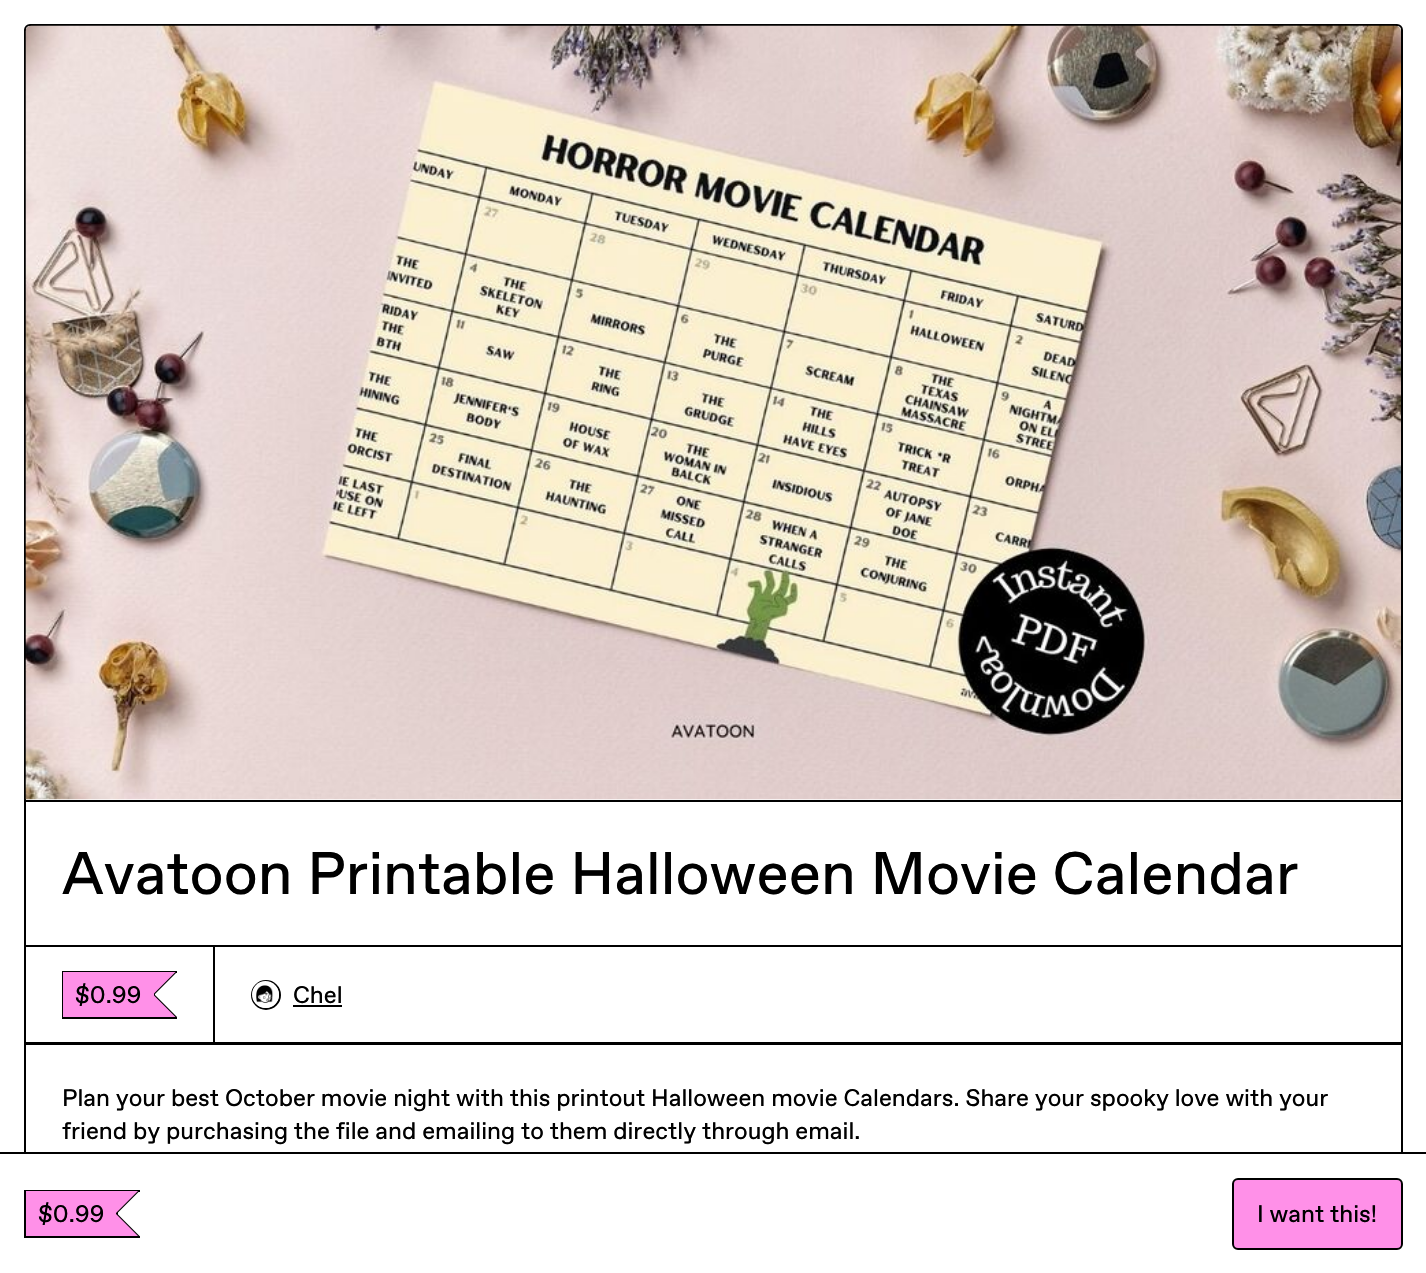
static SkFont makeFont(const char* family, int weight, float size, bool italic = false) {
  SkFontStyle style(weight, SkFontStyle::kNormal_Width,
    italic ? SkFontStyle::kItalic_Slant : SkFontStyle::kUpright_Slant);
  SkFont result(fontMgr->matchFamilyStyle(family, style), size);
  result.setSubpixel(true);
  return result;
}

static void text(SkCanvas* c, const char* s, float x, float y, const SkFont& font, SkColor color) {
  SkPaint ink(SkColor4f::FromColor(color));
  ink.setAntiAlias(true);
  c->drawString(s, x, y, font, ink);
}

static void box(SkCanvas* c, float l, float t, float r, float b, SkColor color) {
  SkPaint ink(SkColor4f::FromColor(color));
  ink.setAntiAlias(true);
  c->drawRect(SkRect::MakeLTRB(l, t, r, b), ink);
}

static void picture(SkCanvas* c, const char* path, float l, float t, float r, float b) {
  auto image = SkImages::DeferredFromEncodedData(SkData::MakeFromFileName(path));
  c->drawImageRect(image, SkRect::MakeLTRB(l, t, r, b), SkSamplingOptions());
}

void draw(SkCanvas* c) {
  SkPaint paint;
  paint.setAntiAlias(true);
  c->clear(0xffffffff);
  paint.setStyle(SkPaint::kStroke_Style);
  paint.setStrokeWidth(2);
  paint.setColor(0xff000000);
  c->drawRoundRect(SkRect::MakeLTRB(25, 25, 1402, 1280), 5, 5, paint);
  box(c, 26, 800, 1401, 802, 0xff000000);
  picture(c, "img_01.png", 25, 25, 1401, 800);
  SkFont face1 = makeFont("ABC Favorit", 400, 60);
  text(c, "Avatoon Printable Halloween Movie Calendar", 62, 894, face1, 0xff000000);
  c->drawRect(SkRect::MakeLTRB(25, 946, 214, 1043), paint);
  box(c, 62, 971, 177, 973, 0xff000000);
  box(c, 62, 1017, 177, 1019, 0xff000000);
  box(c, 62, 971, 64, 1019, 0xff000000);
  box(c, 63, 972, 152, 1017, 0xffff90e8);
  paint.setStyle(SkPaint::kFill_Style);
  c->drawPath(SkPathBuilder().moveTo(153, 972).lineTo(177, 972).lineTo(154.5f, 994.5f).close().detach(), paint);
  c->drawPath(SkPathBuilder().moveTo(177, 1017).lineTo(153, 1017).lineTo(154.5f, 994.5f).close().detach(), paint);
  box(c, 154, 992, 155, 997, 0xff000000);
  paint.setColor(0xffff90e8);
  c->drawPath(SkPathBuilder().moveTo(151.5f, 972).lineTo(175.5f, 972).lineTo(153, 994.5f).close().detach(), paint);
  c->drawPath(SkPathBuilder().moveTo(175.5f, 1017).lineTo(151.5f, 1017).lineTo(153, 994.5f).close().detach(), paint);
  box(c, 152, 972, 154, 1017, 0xffff90e8);
  SkFont face2 = makeFont("ABC Favorit", 400, 24);
  text(c, "$0.99", 75, 1003, face2, 0xff000000);
  paint.setStyle(SkPaint::kStroke_Style);
  paint.setColor(0xff000000);
  c->drawRect(SkRect::MakeLTRB(214, 946, 1402, 1043), paint);
  c->drawCircle(266, 995, 14, paint);
  picture(c, "img_02.png", 252, 981, 279, 1008);
  text(c, "Chel", 293, 1003, face2, 0xff000000);
  box(c, 293, 1005, 342, 1007, 0xff000000);
  box(c, 26, 1044, 1401, 1045, 0xff000000);
  text(c, "Plan your best October movie night with this printout Halloween movie Calendars. Share your spooky love with your", 62, 1106, face2, 0xff000000);
  text(c, "friend by purchasing the file and emailing to them directly through email.", 62, 1139, face2, 0xff000000);
  paint.setStyle(SkPaint::kFill_Style);
  c->drawPath(SkPathBuilder().moveTo(0, 1152).lineTo(0, 1154).lineTo(1426, 1154).lineTo(1426, 1272).lineTo(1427, 1272).lineTo(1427, 1152).close().detach(), paint);
  box(c, 24, 1154, 1403, 1273, 0xffffffff);
  box(c, 24, 1190, 140, 1192, 0xff000000);
  box(c, 24, 1236, 140, 1238, 0xff000000);
  box(c, 24, 1190, 26, 1238, 0xff000000);
  box(c, 26, 1191, 116, 1236, 0xffff90e8);
  c->drawPath(SkPathBuilder().moveTo(115.5f, 1191).lineTo(139.5f, 1191).lineTo(117, 1213.5f).close().detach(), paint);
  c->drawPath(SkPathBuilder().moveTo(139.5f, 1236).lineTo(115.5f, 1236).lineTo(117, 1213.5f).close().detach(), paint);
  box(c, 116, 1211, 118, 1216, 0xff000000);
  paint.setColor(0xffff90e8);
  c->drawPath(SkPathBuilder().moveTo(114, 1191).lineTo(138, 1191).lineTo(115.5f, 1213.5f).close().detach(), paint);
  c->drawPath(SkPathBuilder().moveTo(138, 1236).lineTo(114, 1236).lineTo(115.5f, 1213.5f).close().detach(), paint);
  text(c, "$0.99", 38, 1222, face2, 0xff000000);
  c->drawRoundRect(SkRect::MakeLTRB(1233, 1179, 1402, 1249), 5, 5, paint);
  paint.setStyle(SkPaint::kStroke_Style);
  paint.setColor(0xff000000);
  c->drawRoundRect(SkRect::MakeLTRB(1233, 1179, 1402, 1249), 5, 5, paint);
  text(c, "I want this!", 1257, 1222, face2, 0xff000000);
}
